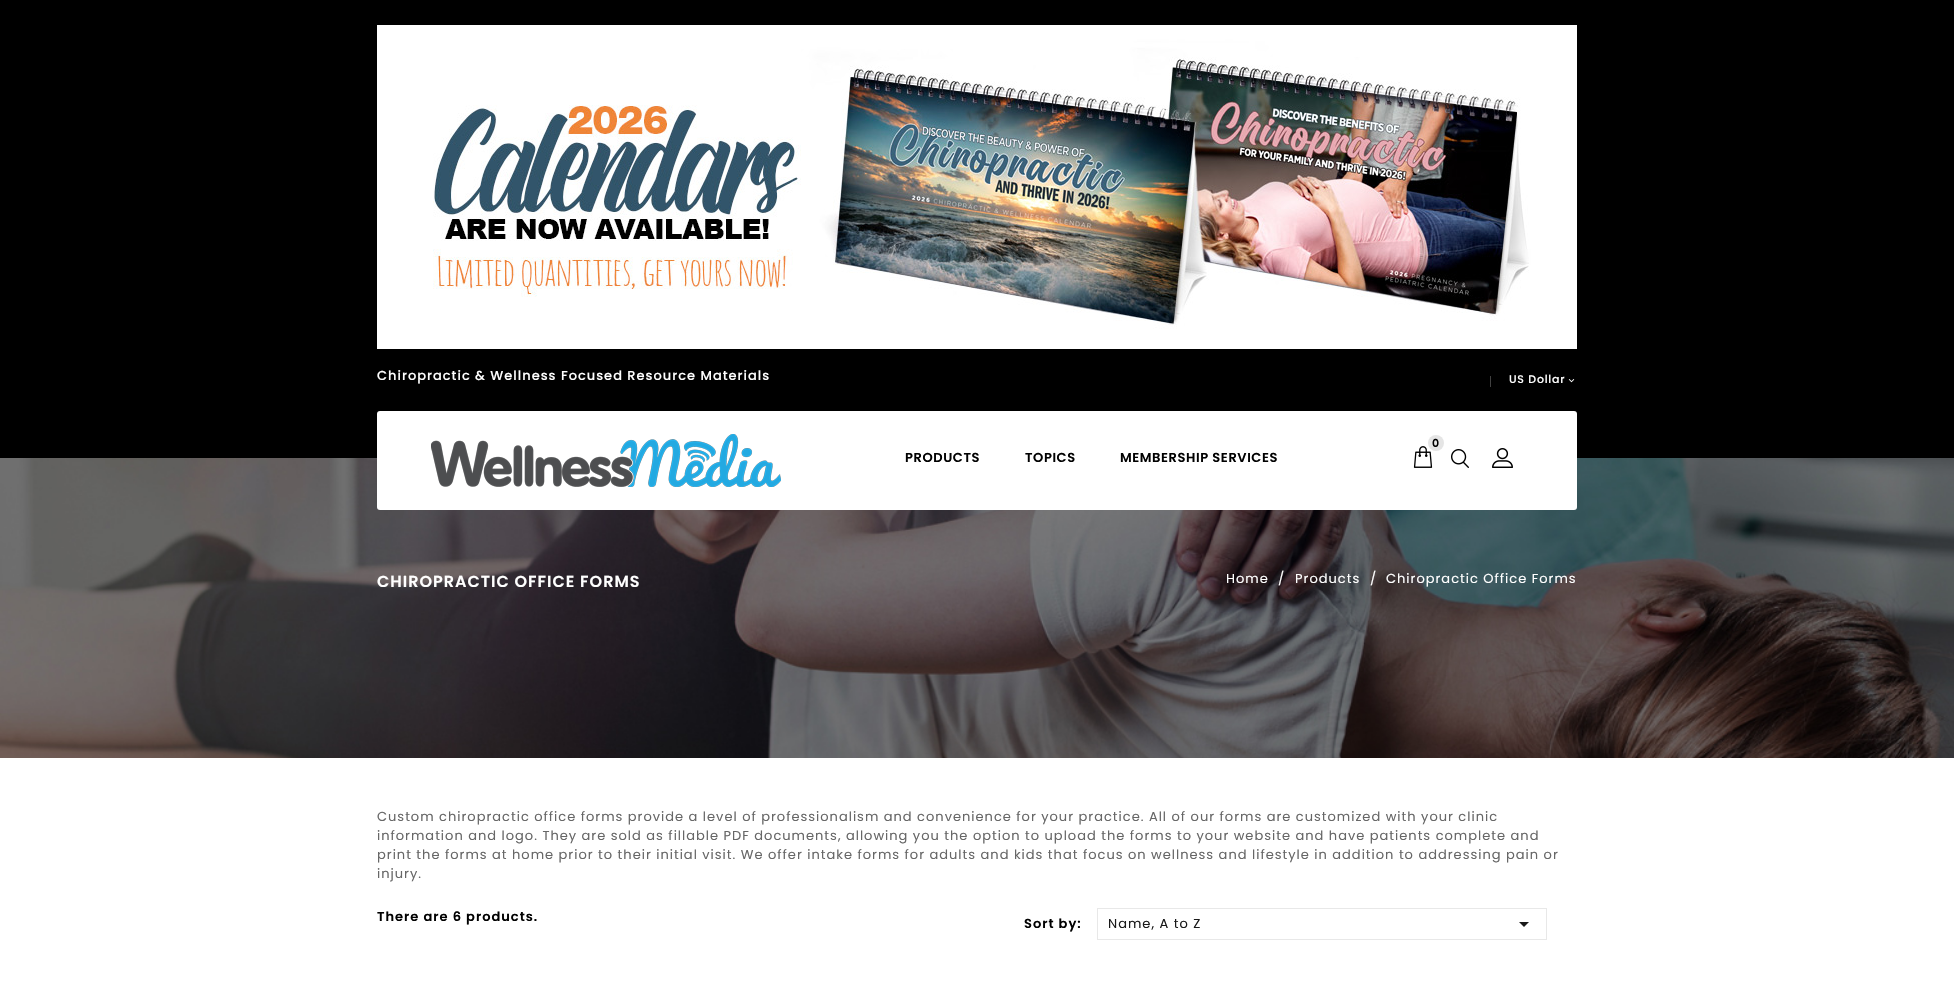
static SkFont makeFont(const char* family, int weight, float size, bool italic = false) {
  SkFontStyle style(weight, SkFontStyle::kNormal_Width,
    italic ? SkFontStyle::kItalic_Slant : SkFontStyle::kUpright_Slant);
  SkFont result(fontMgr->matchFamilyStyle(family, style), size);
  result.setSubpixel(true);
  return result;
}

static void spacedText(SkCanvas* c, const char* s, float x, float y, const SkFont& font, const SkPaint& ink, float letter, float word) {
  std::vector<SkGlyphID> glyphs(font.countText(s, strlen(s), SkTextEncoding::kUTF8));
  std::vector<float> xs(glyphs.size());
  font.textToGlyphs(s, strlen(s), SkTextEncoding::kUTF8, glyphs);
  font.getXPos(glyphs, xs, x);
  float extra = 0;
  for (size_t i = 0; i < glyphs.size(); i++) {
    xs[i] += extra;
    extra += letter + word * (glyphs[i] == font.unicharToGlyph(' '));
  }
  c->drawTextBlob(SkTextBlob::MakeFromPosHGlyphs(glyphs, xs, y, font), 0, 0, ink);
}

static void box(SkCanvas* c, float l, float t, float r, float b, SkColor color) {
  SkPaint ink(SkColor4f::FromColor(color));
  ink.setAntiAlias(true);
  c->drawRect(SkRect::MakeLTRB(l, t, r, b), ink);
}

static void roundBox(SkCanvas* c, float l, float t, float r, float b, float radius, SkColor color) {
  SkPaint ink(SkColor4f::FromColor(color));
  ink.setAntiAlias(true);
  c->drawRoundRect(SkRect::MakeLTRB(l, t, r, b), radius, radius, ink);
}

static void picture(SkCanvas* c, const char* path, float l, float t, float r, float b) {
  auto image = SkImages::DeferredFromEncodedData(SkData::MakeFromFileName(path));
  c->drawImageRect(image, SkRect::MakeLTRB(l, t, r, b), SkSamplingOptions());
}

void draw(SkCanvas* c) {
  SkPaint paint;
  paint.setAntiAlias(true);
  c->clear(0xffffffff);
  box(c, 0, 0, 1954, 458, 0xff000000);
  picture(c, "img_01.png", 377, 25, 1577, 349);
  SkFont face1 = makeFont("Poppins", 500, 13);
  paint.setColor(0xffffffff);
  spacedText(c, "Chiropractic & Wellness Focused Resource Materials", 377, 380, face1, paint, 1, 0);
  box(c, 1490, 376, 1491, 387, 0xff414141);
  SkFont face2 = makeFont("Poppins", 500, 11);
  spacedText(c, "US Dollar", 1509, 383, face2, paint, 0.75f, 0);
  picture(c, "img_02.png", 1568, 379, 1575, 383);
  picture(c, "img_07.png", 0, 458, 1954, 758);
  roundBox(c, 377, 411, 1577, 510, 3, 0xffffffff);
  picture(c, "img_03.png", 431, 434, 781, 487);
  picture(c, "img_04.png", 1413, 446, 1433, 468);
  paint.setColor(0xffe5e5e5);
  c->drawCircle(1436, 443, 8, paint);
  SkFont face3 = makeFont("Poppins", 600, 11);
  paint.setColor(0xff010101);
  spacedText(c, "0", 1432, 447, face3, paint, 1, 0);
  SkFont face4 = makeFont("Poppins", 600, 13);
  spacedText(c, "PRODUCTS", 905, 462, face4, paint, 0.6f, 0);
  spacedText(c, "TOPICS", 1025, 462, face4, paint, 0.6f, 0);
  spacedText(c, "MEMBERSHIP SERVICES", 1120, 462, face4, paint, 0.6f, 0);
  picture(c, "img_05.png", 1451, 449, 1469, 468);
  picture(c, "img_06.png", 1492, 448, 1513, 468);
  SkFont face5 = makeFont("Poppins", 600, 16);
  paint.setColor(0xffffffff);
  spacedText(c, "CHIROPRACTIC OFFICE FORMS", 377, 587, face5, paint, 1, 0);
  SkFont face6 = makeFont("Poppins", 400, 13);
  spacedText(c, "Home", 1226, 583, face6, paint, 1, 0);
  spacedText(c, "/", 1278, 583, face6, paint, 1, 0);
  spacedText(c, "Products", 1295, 583, face6, paint, 1, 0);
  spacedText(c, "/", 1370, 583, face6, paint, 1, 0);
  spacedText(c, "Chiropractic Office Forms", 1386, 583, face6, paint, 1, 0);
  paint.setColor(0xff676767);
  spacedText(c, "Custom chiropractic office forms provide a level of professionalism and convenience for your practice. All of our forms are customized with your clinic", 377, 821, face6, paint, 1, 0);
  spacedText(c, "information and logo. They are sold as fillable PDF documents, allowing you the option to upload the forms to your website and have patients complete and", 377, 840, face6, paint, 1, 0);
  spacedText(c, "print the forms at home prior to their initial visit. We offer intake forms for adults and kids that focus on wellness and lifestyle in addition to addressing pain or", 377, 859, face6, paint, 1, 0);
  spacedText(c, "injury.", 377, 878, face6, paint, 1, 0);
  paint.setColor(0xff010101);
  spacedText(c, "There are 6 products.", 377, 921, face4, paint, 1, 0);
  spacedText(c, "Sort by:", 1024, 928, face4, paint, 1, 0);
  paint.setStyle(SkPaint::kStroke_Style);
  paint.setStrokeWidth(1);
  paint.setColor(0xffe8e8e8);
  c->drawRect(SkRect::MakeLTRB(1097.5f, 908.5f, 1546.5f, 939.5f), paint);
  paint.setStyle(SkPaint::kFill_Style);
  paint.setColor(0xff191919);
  spacedText(c, "Name, A to Z", 1108, 928, face6, paint, 1, 0);
  c->drawPath(SkPathBuilder().moveTo(1519, 922).lineTo(1529, 922).lineTo(1524, 927).close().detach(), paint);
}
